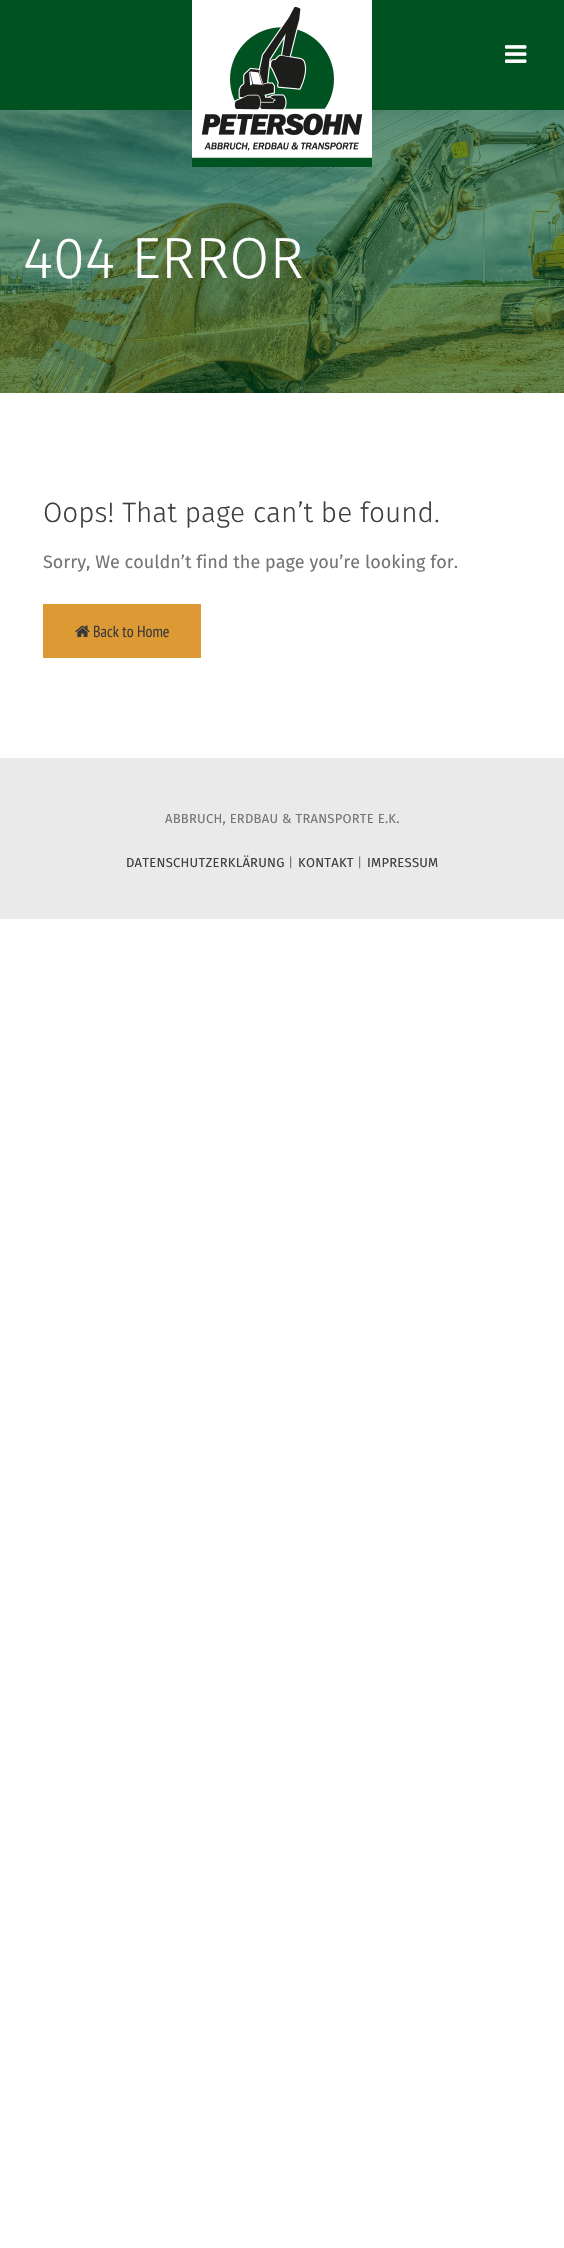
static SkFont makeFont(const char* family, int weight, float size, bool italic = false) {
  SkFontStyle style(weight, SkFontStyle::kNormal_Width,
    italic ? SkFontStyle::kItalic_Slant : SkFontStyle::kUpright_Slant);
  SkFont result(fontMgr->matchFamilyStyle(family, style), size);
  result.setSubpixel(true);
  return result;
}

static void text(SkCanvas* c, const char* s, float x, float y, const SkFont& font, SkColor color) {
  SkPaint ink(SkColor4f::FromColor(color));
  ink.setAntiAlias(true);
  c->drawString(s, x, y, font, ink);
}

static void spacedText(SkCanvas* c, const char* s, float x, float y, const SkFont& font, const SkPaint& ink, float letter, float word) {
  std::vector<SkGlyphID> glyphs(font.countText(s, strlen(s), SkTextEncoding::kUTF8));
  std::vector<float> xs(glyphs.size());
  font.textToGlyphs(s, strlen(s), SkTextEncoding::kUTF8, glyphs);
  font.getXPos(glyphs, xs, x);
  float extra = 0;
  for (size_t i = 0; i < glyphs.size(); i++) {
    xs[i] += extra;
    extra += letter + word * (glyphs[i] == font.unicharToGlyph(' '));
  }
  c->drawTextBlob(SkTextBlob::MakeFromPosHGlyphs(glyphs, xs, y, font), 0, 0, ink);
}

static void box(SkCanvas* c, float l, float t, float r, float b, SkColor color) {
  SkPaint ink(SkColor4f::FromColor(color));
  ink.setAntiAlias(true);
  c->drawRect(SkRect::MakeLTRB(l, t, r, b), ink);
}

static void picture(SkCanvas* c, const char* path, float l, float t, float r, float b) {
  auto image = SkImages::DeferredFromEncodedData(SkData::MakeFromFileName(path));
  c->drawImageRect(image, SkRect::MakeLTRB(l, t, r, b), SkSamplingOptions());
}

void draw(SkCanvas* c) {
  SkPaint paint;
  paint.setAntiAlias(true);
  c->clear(0xffffffff);
  box(c, 0, 0, 564, 110, 0xff005221);
  picture(c, "img_03.png", 0, 110, 564, 393);
  picture(c, "img_01.png", 192, 0, 372, 167);
  picture(c, "img_02.png", 505, 45, 527, 63);
  SkFont face1 = makeFont("Fira Sans", 300, 58);
  text(c, "404 ERROR", 23, 278, face1, 0xffffffff);
  SkFont face2 = makeFont("Fira Sans", 300, 28);
  text(c, "Oops! That page can’t be found.", 43, 522, face2, 0xff3f3f3f);
  SkFont face3 = makeFont("Fira Sans", 400, 18);
  text(c, "Sorry, We couldn’t find the page you’re looking for.", 43, 568, face3, 0xff757575);
  box(c, 43, 604, 201, 658, 0xffdd9933);
  picture(c, "img_04.png", 75, 625, 90, 637);
  SkFont face4 = makeFont("PT Sans Narrow", 400, 16);
  text(c, "Back to Home", 93, 637, face4, 0xff393939);
  box(c, 0, 758, 564, 919, 0xffeaeaea);
  SkFont face5 = makeFont("Fira Sans", 400, 13);
  paint.setColor(0xff757575);
  spacedText(c, "ABBRUCH, ERDBAU & TRANSPORTE E.K.", 165, 823, face5, paint, 0.25f, 0);
  paint.setColor(0xff3f3f3f);
  spacedText(c, "DATENSCHUTZERKLÄRUNG", 126, 867, face5, paint, 0.25f, 0);
  paint.setColor(0xff757575);
  spacedText(c, "|", 288, 867, face5, paint, 0.25f, 0);
  paint.setColor(0xff3f3f3f);
  spacedText(c, "KONTAKT", 298, 867, face5, paint, 0.25f, 0);
  paint.setColor(0xff757575);
  spacedText(c, "|", 357, 867, face5, paint, 0.25f, 0);
  paint.setColor(0xff3f3f3f);
  spacedText(c, "IMPRESSUM", 367, 867, face5, paint, 0.25f, 0);
}
